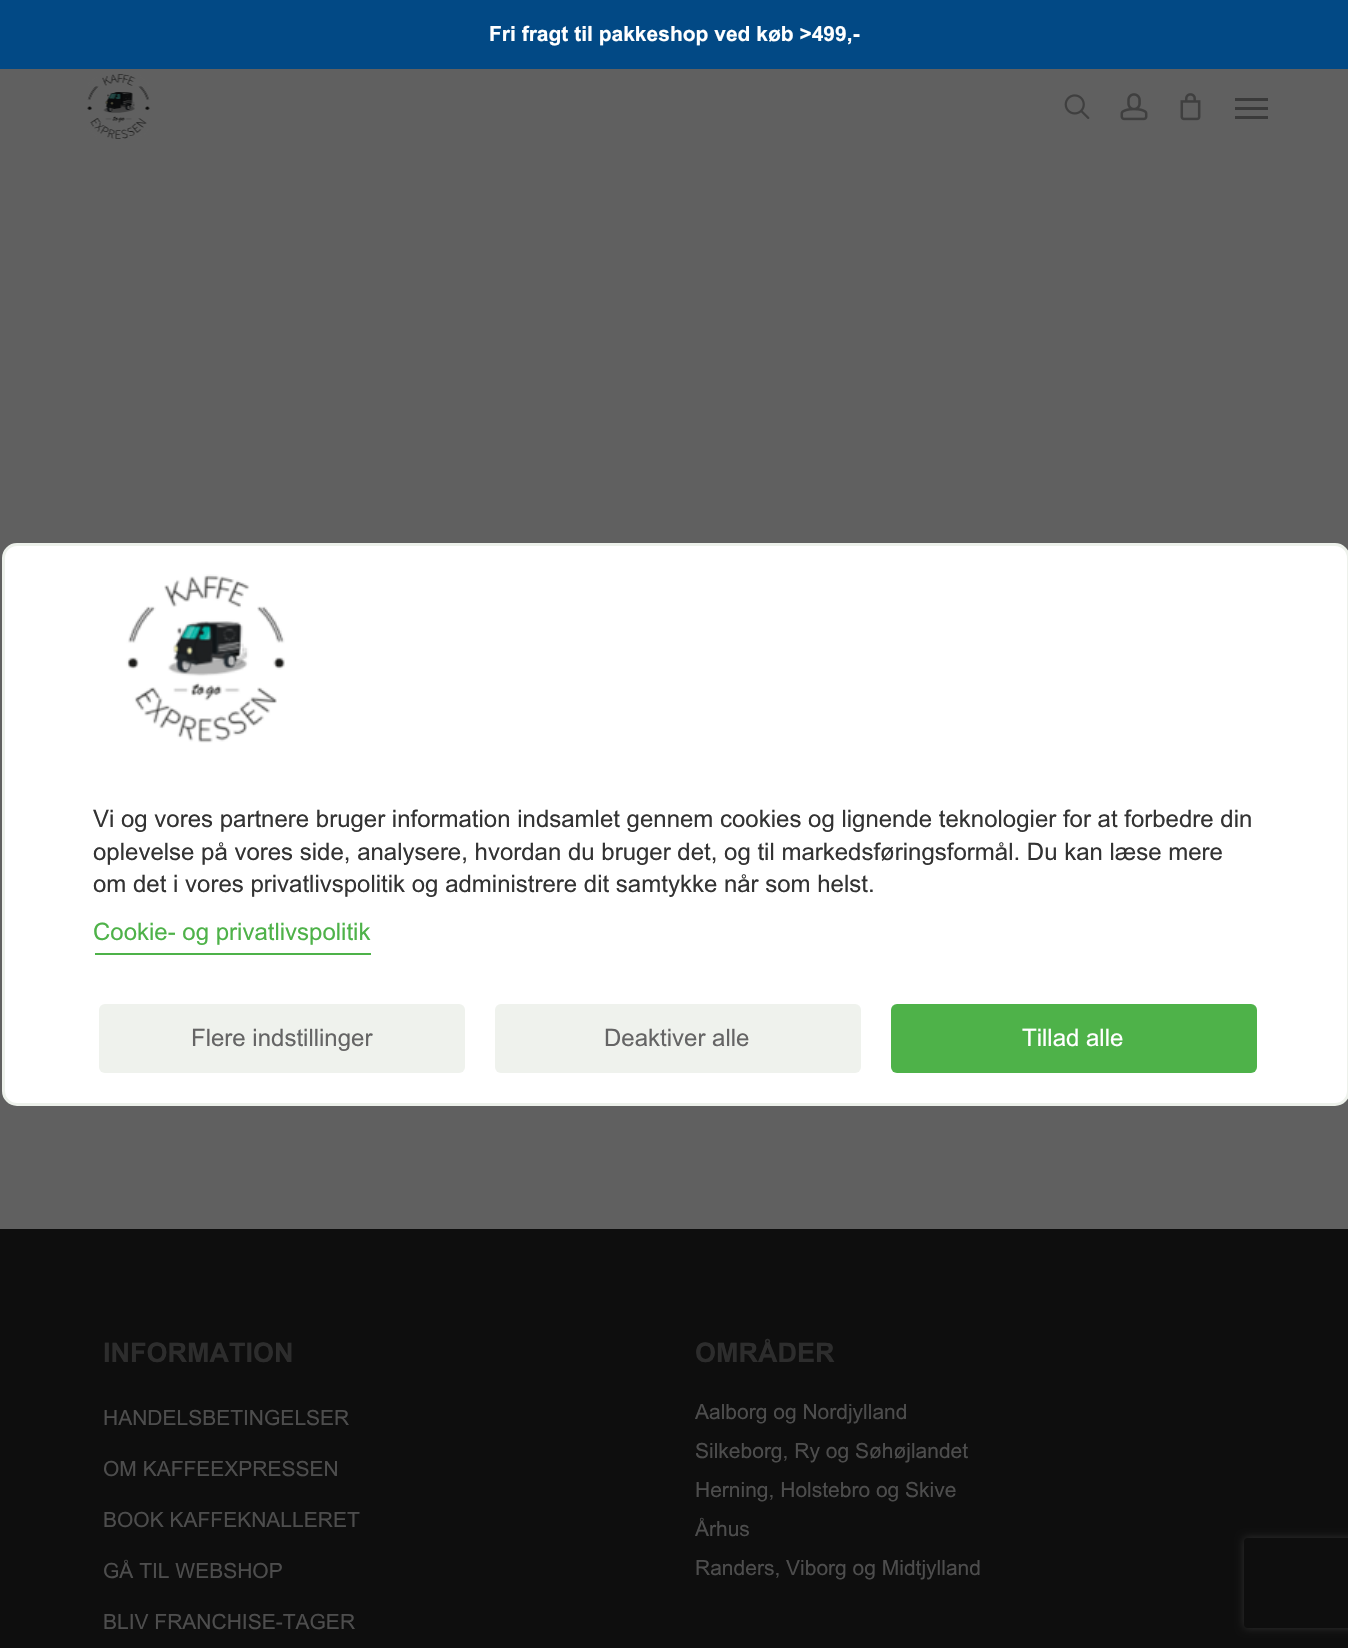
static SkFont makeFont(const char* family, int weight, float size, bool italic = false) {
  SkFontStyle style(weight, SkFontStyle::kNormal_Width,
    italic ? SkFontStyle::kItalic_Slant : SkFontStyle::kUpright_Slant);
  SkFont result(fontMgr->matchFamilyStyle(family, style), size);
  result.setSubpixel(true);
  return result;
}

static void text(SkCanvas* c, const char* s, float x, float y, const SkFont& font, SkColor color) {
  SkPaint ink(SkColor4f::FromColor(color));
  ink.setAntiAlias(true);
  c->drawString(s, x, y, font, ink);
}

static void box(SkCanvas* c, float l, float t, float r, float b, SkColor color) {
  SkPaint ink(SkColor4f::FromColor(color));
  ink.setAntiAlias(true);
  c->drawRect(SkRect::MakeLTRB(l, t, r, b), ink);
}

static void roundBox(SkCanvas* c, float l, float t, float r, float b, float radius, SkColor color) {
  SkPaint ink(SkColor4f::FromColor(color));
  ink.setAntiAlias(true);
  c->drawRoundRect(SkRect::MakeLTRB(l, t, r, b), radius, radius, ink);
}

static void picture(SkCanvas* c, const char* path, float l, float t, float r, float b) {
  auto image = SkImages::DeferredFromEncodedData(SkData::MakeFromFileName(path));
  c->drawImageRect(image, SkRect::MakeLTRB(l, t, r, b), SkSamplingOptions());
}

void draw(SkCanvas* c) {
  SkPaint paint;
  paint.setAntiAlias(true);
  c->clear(0xff606060);
  box(c, 0, 0, 1348, 69, 0xff024985);
  SkFont face1 = makeFont("Arial", 700, 21);
  text(c, "Fri fragt til pakkeshop ved køb >499,-", 489, 41, face1, 0xffffffff);
  picture(c, "img_01.png", 87, 74, 150, 139);
  picture(c, "img_02.png", 1064, 94, 1090, 119);
  picture(c, "img_03.png", 1120, 93, 1148, 121);
  picture(c, "img_04.png", 1180, 93, 1201, 121);
  box(c, 1235, 98, 1268, 101, 0xff3a3a3a);
  box(c, 1235, 116, 1268, 119, 0xff3a3a3a);
  box(c, 1235, 107, 1268, 110, 0xff3a3a3a);
  paint.setColor(0xffffffff);
  c->drawRoundRect(SkRect::MakeLTRB(3.5f, 544.5f, 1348.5f, 1104.5f), 13.5f, 13.5f, paint);
  paint.setStyle(SkPaint::kStroke_Style);
  paint.setStrokeWidth(3);
  paint.setColor(0xffedf1eb);
  c->drawRoundRect(SkRect::MakeLTRB(3.5f, 544.5f, 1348.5f, 1104.5f), 13.5f, 13.5f, paint);
  picture(c, "img_05.png", 126, 574, 285, 743);
  SkFont face2 = makeFont("Arial", 400, 24);
  text(c, "Vi og vores partnere bruger information indsamlet gennem cookies og lignende teknologier for at forbedre din", 93, 827, face2, 0xff333333);
  text(c, "oplevelse på vores side, analysere, hvordan du bruger det, og til markedsføringsformål. Du kan læse mere", 93, 860, face2, 0xff333333);
  text(c, "om det i vores privatlivspolitik og administrere dit samtykke når som helst.", 93, 892, face2, 0xff333333);
  text(c, "Cookie- og privatlivspolitik", 93, 940, face2, 0xff4eb249);
  box(c, 95, 953, 371, 955, 0xff4eb249);
  roundBox(c, 99, 1004, 465, 1073, 6, 0xffeff2ed);
  text(c, "Flere indstillinger", 191, 1046, face2, 0xff656565);
  roundBox(c, 495, 1004, 861, 1073, 6, 0xffeff2ed);
  text(c, "Deaktiver alle", 604, 1046, face2, 0xff656565);
  roundBox(c, 891, 1004, 1257, 1073, 6, 0xff4eb249);
  text(c, "Tillad alle", 1022, 1046, face2, 0xffffffff);
  box(c, 0, 1229, 1348, 1648, 0xff0e0e0e);
  SkFont face3 = makeFont("Arial", 700, 27);
  text(c, "INFORMATION", 103, 1362, face3, 0xff2d2d2d);
  SkFont face4 = makeFont("Arial", 400, 21);
  text(c, "HANDELSBETINGELSER", 103, 1425, face4, 0xff4d4d4d);
  text(c, "OM KAFFEEXPRESSEN", 103, 1476, face4, 0xff4d4d4d);
  text(c, "BOOK KAFFEKNALLERET", 103, 1527, face4, 0xff4d4d4d);
  text(c, "GÅ TIL WEBSHOP", 103, 1578, face4, 0xff4d4d4d);
  text(c, "BLIV FRANCHISE-TAGER", 103, 1629, face4, 0xff4d4d4d);
  text(c, "OMRÅDER", 695, 1362, face3, 0xff2d2d2d);
  text(c, "Aalborg og Nordjylland", 695, 1419, face4, 0xff4d4d4d);
  text(c, "Silkeborg, Ry og Søhøjlandet", 695, 1458, face4, 0xff4d4d4d);
  text(c, "Herning, Holstebro og Skive", 695, 1497, face4, 0xff4d4d4d);
  text(c, "Århus", 695, 1536, face4, 0xff4d4d4d);
  text(c, "Randers, Viborg og Midtjylland", 695, 1575, face4, 0xff4d4d4d);
  c->save();
  c->clipPath(SkPathBuilder(SkPathFillType::kEvenOdd).moveTo(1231, 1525).lineTo(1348, 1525).lineTo(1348, 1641).lineTo(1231, 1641).close().moveTo(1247, 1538).lineTo(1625, 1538).cubicTo(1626.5f, 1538, 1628, 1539.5f, 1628, 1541).lineTo(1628, 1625).cubicTo(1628, 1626.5f, 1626.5f, 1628, 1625, 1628).lineTo(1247, 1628).cubicTo(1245.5f, 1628, 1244, 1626.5f, 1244, 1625).lineTo(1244, 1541).cubicTo(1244, 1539.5f, 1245.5f, 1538, 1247, 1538).close().detach(), true);
  paint.setStyle(SkPaint::kFill_Style);
  paint.setColor(0xff303030);
  paint.setMaskFilter(SkMaskFilter::MakeBlur(kNormal_SkBlurStyle, 4));
  c->drawRoundRect(SkRect::MakeLTRB(1244, 1538, 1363, 1628), 3, 3, paint);
  paint.setMaskFilter(nullptr);
  c->restore();
}
